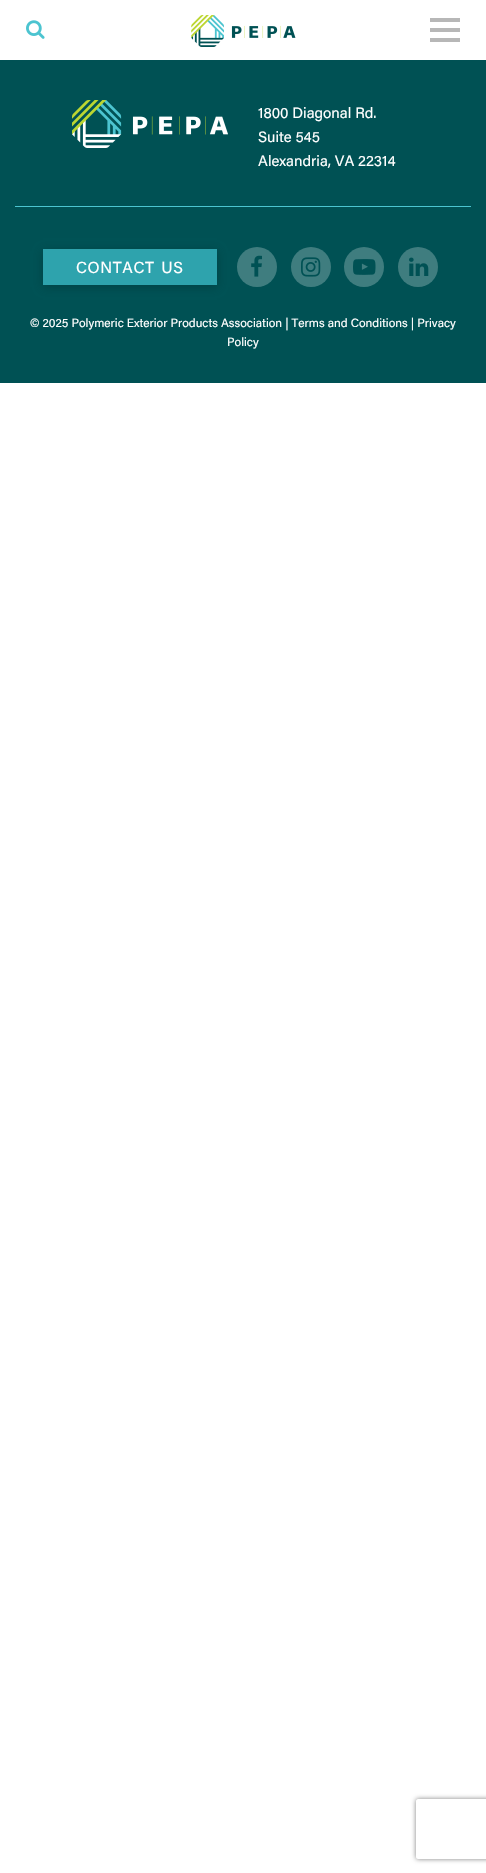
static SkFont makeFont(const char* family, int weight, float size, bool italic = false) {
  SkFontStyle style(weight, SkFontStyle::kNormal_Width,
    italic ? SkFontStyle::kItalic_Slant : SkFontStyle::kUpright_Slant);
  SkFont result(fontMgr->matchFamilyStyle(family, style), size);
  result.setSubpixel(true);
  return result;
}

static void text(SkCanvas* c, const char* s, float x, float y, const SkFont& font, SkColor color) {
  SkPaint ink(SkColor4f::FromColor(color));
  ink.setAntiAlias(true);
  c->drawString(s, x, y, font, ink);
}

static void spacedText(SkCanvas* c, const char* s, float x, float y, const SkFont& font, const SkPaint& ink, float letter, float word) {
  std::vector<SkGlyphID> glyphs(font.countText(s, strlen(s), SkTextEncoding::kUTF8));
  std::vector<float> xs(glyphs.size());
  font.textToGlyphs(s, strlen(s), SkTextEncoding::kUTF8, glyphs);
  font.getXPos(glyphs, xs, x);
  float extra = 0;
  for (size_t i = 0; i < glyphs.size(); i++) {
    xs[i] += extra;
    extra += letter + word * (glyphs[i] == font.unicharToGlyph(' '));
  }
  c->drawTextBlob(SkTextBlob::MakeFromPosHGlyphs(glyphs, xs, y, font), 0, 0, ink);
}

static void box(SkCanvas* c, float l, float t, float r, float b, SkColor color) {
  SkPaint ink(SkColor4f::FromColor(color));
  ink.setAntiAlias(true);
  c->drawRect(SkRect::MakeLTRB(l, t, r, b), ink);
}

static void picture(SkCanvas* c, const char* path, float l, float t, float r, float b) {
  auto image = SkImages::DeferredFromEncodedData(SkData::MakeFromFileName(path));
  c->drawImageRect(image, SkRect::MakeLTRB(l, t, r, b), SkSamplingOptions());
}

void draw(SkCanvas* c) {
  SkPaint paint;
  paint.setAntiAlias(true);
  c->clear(0xffffffff);
  picture(c, "img_01.png", 191, 15, 296, 47);
  picture(c, "img_02.png", 26, 20, 45, 39);
  box(c, 430, 18, 460, 22, 0xffb7b7b7);
  box(c, 430, 28, 460, 32, 0xffb7b7b7);
  box(c, 430, 38, 460, 42, 0xffb7b7b7);
  box(c, 0, 60, 486, 383, 0xff005154);
  picture(c, "img_03.png", 72, 100, 228, 148);
  SkFont face1 = makeFont("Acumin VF", 400, 15);
  text(c, "1800 Diagonal Rd.", 258, 118, face1, 0xffffffff);
  text(c, "Suite 545", 258, 142, face1, 0xffffffff);
  text(c, "Alexandria, VA 22314", 258, 166, face1, 0xffffffff);
  box(c, 15, 206, 471, 207, 0xff4cc4d0);
  paint.setColor(0x80003133);
  paint.setMaskFilter(SkMaskFilter::MakeBlur(kNormal_SkBlurStyle, 4.5f));
  c->drawRect(SkRect::MakeLTRB(43, 251, 217, 287), paint);
  paint.setMaskFilter(nullptr);
  box(c, 43, 249, 217, 285, 0xff2ea3ad);
  SkFont face2 = makeFont("Acumin VF", 400, 16);
  paint.setColor(0xffffffff);
  spacedText(c, "CONTACT US", 76, 273, face2, paint, 0.6f, 2);
  paint.setColor(0xff3f7d7f);
  c->drawCircle(257, 267, 20, paint);
  picture(c, "img_04.png", 251, 255, 262, 277);
  c->drawCircle(311, 267, 20, paint);
  picture(c, "img_05.png", 301, 257, 321, 277);
  c->drawCircle(364, 267, 20, paint);
  picture(c, "img_06.png", 353, 259, 376, 275);
  c->drawCircle(418, 267, 20, paint);
  picture(c, "img_07.png", 409, 257, 429, 276);
  SkFont face3 = makeFont("Acumin VF", 400, 12);
  text(c, "© 2025 Polymeric Exterior Products Association | Terms and Conditions | Privacy", 30, 327, face3, 0xffffffff);
  text(c, "Policy", 227, 346, face3, 0xffffffff);
  c->save();
  c->clipPath(SkPathBuilder(SkPathFillType::kEvenOdd).moveTo(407, 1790).lineTo(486, 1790).lineTo(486, 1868).lineTo(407, 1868).close().moveTo(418, 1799).lineTo(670, 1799).cubicTo(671, 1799, 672, 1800, 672, 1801).lineTo(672, 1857).cubicTo(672, 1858, 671, 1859, 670, 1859).lineTo(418, 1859).cubicTo(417, 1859, 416, 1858, 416, 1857).lineTo(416, 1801).cubicTo(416, 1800, 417, 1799, 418, 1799).close().detach(), true);
  paint.setColor(0xff808080);
  paint.setMaskFilter(SkMaskFilter::MakeBlur(kNormal_SkBlurStyle, 2.5f));
  c->drawRoundRect(SkRect::MakeLTRB(416, 1799, 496, 1859), 2, 2, paint);
  paint.setMaskFilter(nullptr);
  c->restore();
}
